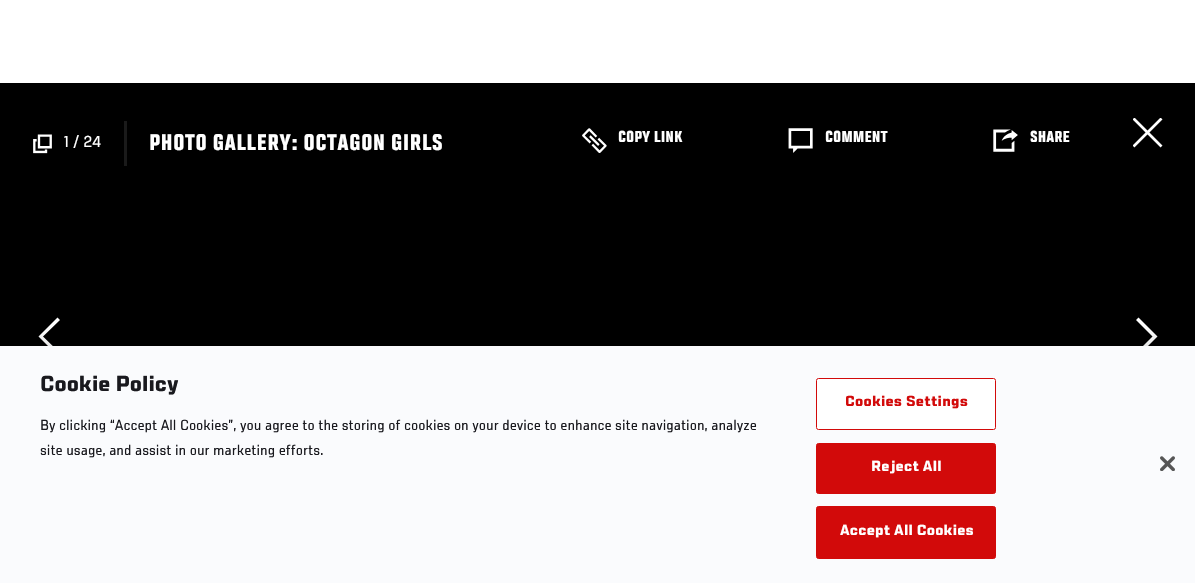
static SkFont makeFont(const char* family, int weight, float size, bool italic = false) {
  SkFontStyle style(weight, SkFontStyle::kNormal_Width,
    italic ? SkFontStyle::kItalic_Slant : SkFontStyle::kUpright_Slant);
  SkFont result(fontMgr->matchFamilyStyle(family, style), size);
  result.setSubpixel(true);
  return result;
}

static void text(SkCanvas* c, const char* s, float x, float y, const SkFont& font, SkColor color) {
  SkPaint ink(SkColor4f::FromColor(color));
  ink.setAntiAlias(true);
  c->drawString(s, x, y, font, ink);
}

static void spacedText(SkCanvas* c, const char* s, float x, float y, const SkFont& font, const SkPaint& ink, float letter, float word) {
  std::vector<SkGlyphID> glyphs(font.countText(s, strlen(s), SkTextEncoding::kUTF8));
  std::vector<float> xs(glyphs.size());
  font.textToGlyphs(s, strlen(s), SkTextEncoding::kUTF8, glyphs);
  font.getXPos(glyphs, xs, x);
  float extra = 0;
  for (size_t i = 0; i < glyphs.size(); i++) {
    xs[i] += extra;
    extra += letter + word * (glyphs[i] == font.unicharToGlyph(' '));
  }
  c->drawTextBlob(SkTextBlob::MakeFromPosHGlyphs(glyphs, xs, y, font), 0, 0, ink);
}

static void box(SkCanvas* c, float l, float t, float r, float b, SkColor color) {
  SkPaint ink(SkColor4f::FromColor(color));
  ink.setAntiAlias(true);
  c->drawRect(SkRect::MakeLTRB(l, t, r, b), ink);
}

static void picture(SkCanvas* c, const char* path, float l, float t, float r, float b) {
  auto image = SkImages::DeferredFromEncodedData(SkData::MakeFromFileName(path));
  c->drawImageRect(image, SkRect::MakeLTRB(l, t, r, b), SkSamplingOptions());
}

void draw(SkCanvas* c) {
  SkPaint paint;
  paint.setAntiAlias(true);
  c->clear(0xffffffff);
  box(c, 0, 83, 1195, 346, 0xff000000);
  paint.setColor(0xffffffff);
  c->drawPath(SkPathBuilder().moveTo(60, 353).lineTo(57.5f, 355.5f).lineTo(38.5f, 336.5f).lineTo(57.5f, 317.5f).lineTo(60, 320).lineTo(43, 336.5f).close().detach(), paint);
  c->drawPath(SkPathBuilder().moveTo(1152.5f, 336.5f).lineTo(1136, 320).lineTo(1138.5f, 317.5f).lineTo(1157.5f, 336.5f).lineTo(1138.5f, 355.5f).lineTo(1136, 353).close().detach(), paint);
  picture(c, "img_01.png", 33, 134, 52, 154);
  SkFont face1 = makeFont("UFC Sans", 400, 17.5f);
  text(c, "1 / 24", 64, 147, face1, 0xffffffff);
  box(c, 124, 121, 127, 166, 0xff1a1a1a);
  SkFont face2 = makeFont("UFC Sans", 700, 25);
  spacedText(c, "PHOTO GALLERY: OCTAGON GIRLS", 149, 150, face2, paint, 0.25f, 0);
  picture(c, "img_02.png", 582, 128, 607, 153);
  SkFont face3 = makeFont("UFC Sans", 700, 17.5f);
  text(c, "COPY LINK", 618, 142, face3, 0xffffffff);
  picture(c, "img_03.png", 788, 128, 813, 153);
  text(c, "COMMENT", 825, 142, face3, 0xffffffff);
  picture(c, "img_04.png", 993, 129, 1018, 152);
  text(c, "SHARE", 1030, 142, face3, 0xffffffff);
  picture(c, "img_05.png", 1133, 118, 1163, 148);
  paint.setColor(0x33000000);
  paint.setMaskFilter(SkMaskFilter::MakeBlur(kNormal_SkBlurStyle, 11));
  c->drawRect(SkRect::MakeLTRB(0, 346, 1195, 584), paint);
  paint.setMaskFilter(nullptr);
  box(c, 0, 346, 1195, 583, 0xfffafbfd);
  SkFont face4 = makeFont("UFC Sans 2", 700, 24);
  text(c, "Cookie Policy", 40, 391, face4, 0xff19191e);
  SkFont face5 = makeFont("UFC Sans", 400, 16.25f);
  text(c, "By clicking “Accept All Cookies”, you agree to the storing of cookies on your device to enhance site navigation, analyze", 40, 430, face5, 0xff19191e);
  text(c, "site usage, and assist in our marketing efforts.", 40, 455, face5, 0xff19191e);
  paint.setColor(0xffffffff);
  c->drawRoundRect(SkRect::MakeLTRB(816.5f, 378.5f, 995.5f, 429.5f), 2, 2, paint);
  paint.setStyle(SkPaint::kStroke_Style);
  paint.setStrokeWidth(1);
  paint.setColor(0xffd20a0a);
  c->drawRoundRect(SkRect::MakeLTRB(816.5f, 378.5f, 995.5f, 429.5f), 2, 2, paint);
  SkFont face6 = makeFont("UFC Sans 2", 700, 16.25f);
  paint.setStyle(SkPaint::kFill_Style);
  spacedText(c, "Cookies Settings", 845, 406, face6, paint, 0.2f, 0);
  c->drawRoundRect(SkRect::MakeLTRB(816.5f, 443.5f, 995.5f, 493.5f), 2, 2, paint);
  paint.setStyle(SkPaint::kStroke_Style);
  c->drawRoundRect(SkRect::MakeLTRB(816.5f, 443.5f, 995.5f, 493.5f), 2, 2, paint);
  paint.setStyle(SkPaint::kFill_Style);
  paint.setColor(0xffffffff);
  spacedText(c, "Reject All", 871, 471, face6, paint, 0.2f, 0);
  paint.setColor(0xffd20a0a);
  c->drawRoundRect(SkRect::MakeLTRB(816.5f, 506.5f, 995.5f, 558.5f), 2, 2, paint);
  paint.setStyle(SkPaint::kStroke_Style);
  c->drawRoundRect(SkRect::MakeLTRB(816.5f, 506.5f, 995.5f, 558.5f), 2, 2, paint);
  paint.setStyle(SkPaint::kFill_Style);
  paint.setColor(0xffffffff);
  spacedText(c, "Accept All Cookies", 840, 535, face6, paint, 0.2f, 0);
  picture(c, "img_06.png", 1160, 456, 1175, 471);
}
